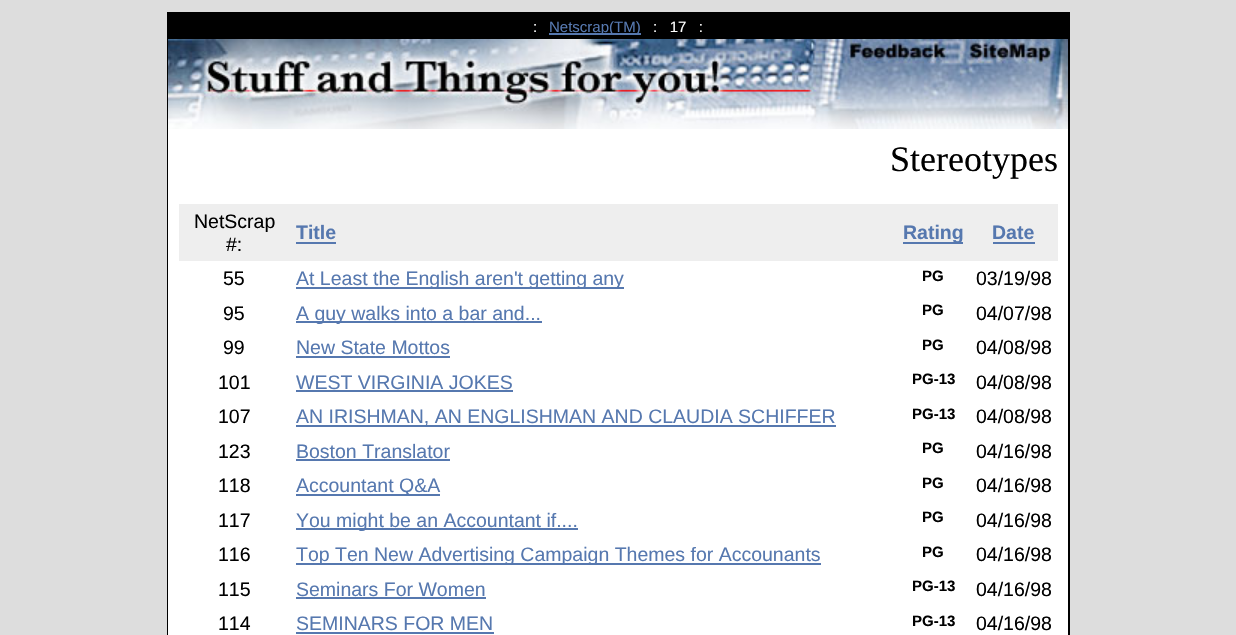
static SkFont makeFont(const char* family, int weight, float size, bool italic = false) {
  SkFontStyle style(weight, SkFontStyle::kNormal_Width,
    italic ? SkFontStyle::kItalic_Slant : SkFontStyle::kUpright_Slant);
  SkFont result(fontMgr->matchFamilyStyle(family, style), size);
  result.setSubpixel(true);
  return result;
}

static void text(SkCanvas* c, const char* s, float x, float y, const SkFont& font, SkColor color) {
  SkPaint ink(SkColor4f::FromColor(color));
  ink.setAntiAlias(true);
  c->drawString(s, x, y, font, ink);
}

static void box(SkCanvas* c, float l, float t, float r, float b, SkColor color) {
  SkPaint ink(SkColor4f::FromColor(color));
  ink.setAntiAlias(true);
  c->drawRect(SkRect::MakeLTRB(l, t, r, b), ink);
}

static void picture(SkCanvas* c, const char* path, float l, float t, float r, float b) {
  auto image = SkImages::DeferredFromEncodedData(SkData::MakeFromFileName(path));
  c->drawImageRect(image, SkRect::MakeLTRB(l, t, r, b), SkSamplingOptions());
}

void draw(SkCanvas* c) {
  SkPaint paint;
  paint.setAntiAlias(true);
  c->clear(0xffdddddd);
  box(c, 167, 12, 1070, 635, 0xff000000);
  SkFont face1 = makeFont("Liberation Sans", 400, 15);
  text(c, ":", 533, 32, face1, 0xffffffff);
  box(c, 549, 33, 641, 35, 0xff5678af);
  text(c, "Netscrap(TM)", 549, 32, face1, 0xff5678af);
  text(c, ":   17   :", 653, 32, face1, 0xffffffff);
  box(c, 168, 129, 1068, 635, 0xffffffff);
  picture(c, "img_01.png", 168, 39, 1068, 129);
  SkFont face2 = makeFont("Liberation Serif", 400, 36);
  text(c, "Stereotypes", 890, 171, face2, 0xff000000);
  box(c, 179, 204, 1058, 261, 0xffeeeeee);
  SkFont face3 = makeFont("Liberation Sans", 400, 19.5f);
  text(c, "NetScrap", 194, 228, face3, 0xff000000);
  text(c, "#:", 226, 251, face3, 0xff000000);
  SkFont face4 = makeFont("Liberation Sans", 700, 19.5f);
  text(c, "Title", 296, 239, face4, 0xff5678af);
  box(c, 296, 242, 336, 244, 0xff5678af);
  box(c, 903, 242, 963, 244, 0xff5678af);
  text(c, "Rating", 903, 239, face4, 0xff5678af);
  text(c, "Date", 992, 239, face4, 0xff5678af);
  box(c, 993, 242, 1035, 244, 0xff5678af);
  text(c, "55", 223, 285, face3, 0xff000000);
  box(c, 296, 287, 624, 289, 0xff5678af);
  text(c, "At Least the English aren't getting any", 296, 285, face3, 0xff5678af);
  SkFont face5 = makeFont("Liberation Sans", 700, 15);
  text(c, "PG", 922, 281, face5, 0xff000000);
  text(c, "03/19/98", 976, 285, face3, 0xff000000);
  text(c, "95", 223, 320, face3, 0xff000000);
  box(c, 296, 321, 542, 323, 0xff5678af);
  text(c, "A guy walks into a bar and...", 296, 320, face3, 0xff5678af);
  text(c, "PG", 922, 315, face5, 0xff000000);
  text(c, "04/07/98", 976, 320, face3, 0xff000000);
  text(c, "99", 223, 354, face3, 0xff000000);
  text(c, "New State Mottos", 296, 354, face3, 0xff5678af);
  box(c, 296, 356, 450, 358, 0xff5678af);
  text(c, "PG", 922, 350, face5, 0xff000000);
  text(c, "04/08/98", 976, 354, face3, 0xff000000);
  text(c, "101", 218, 389, face3, 0xff000000);
  text(c, "WEST VIRGINIA JOKES", 296, 389, face3, 0xff5678af);
  box(c, 296, 390, 513, 392, 0xff5678af);
  text(c, "PG-13", 912, 384, face5, 0xff000000);
  text(c, "04/08/98", 976, 389, face3, 0xff000000);
  text(c, "107", 218, 423, face3, 0xff000000);
  box(c, 296, 425, 836, 427, 0xff5678af);
  text(c, "AN IRISHMAN, AN ENGLISHMAN AND CLAUDIA SCHIFFER", 296, 423, face3, 0xff5678af);
  text(c, "PG-13", 912, 419, face5, 0xff000000);
  text(c, "04/08/98", 976, 423, face3, 0xff000000);
  text(c, "123", 218, 458, face3, 0xff000000);
  text(c, "Boston Translator", 296, 458, face3, 0xff5678af);
  box(c, 296, 459, 450, 461, 0xff5678af);
  text(c, "PG", 922, 453, face5, 0xff000000);
  text(c, "04/16/98", 976, 458, face3, 0xff000000);
  text(c, "118", 218, 492, face3, 0xff000000);
  box(c, 296, 494, 440, 496, 0xff5678af);
  text(c, "Accountant Q&A", 296, 492, face3, 0xff5678af);
  text(c, "PG", 922, 488, face5, 0xff000000);
  text(c, "04/16/98", 976, 492, face3, 0xff000000);
  text(c, "117", 218, 527, face3, 0xff000000);
  box(c, 296, 528, 578, 530, 0xff5678af);
  text(c, "You might be an Accountant if....", 296, 527, face3, 0xff5678af);
  text(c, "PG", 922, 522, face5, 0xff000000);
  text(c, "04/16/98", 976, 527, face3, 0xff000000);
  text(c, "116", 218, 561, face3, 0xff000000);
  box(c, 296, 563, 821, 565, 0xff5678af);
  text(c, "Top Ten New Advertising Campaign Themes for Accounants", 296, 561, face3, 0xff5678af);
  text(c, "PG", 922, 557, face5, 0xff000000);
  text(c, "04/16/98", 976, 561, face3, 0xff000000);
  text(c, "115", 218, 596, face3, 0xff000000);
  text(c, "Seminars For Women", 296, 596, face3, 0xff5678af);
  box(c, 296, 597, 486, 599, 0xff5678af);
  text(c, "PG-13", 912, 591, face5, 0xff000000);
  text(c, "04/16/98", 976, 596, face3, 0xff000000);
  text(c, "114", 218, 630, face3, 0xff000000);
  text(c, "SEMINARS FOR MEN", 296, 630, face3, 0xff5678af);
  box(c, 296, 632, 494, 634, 0xff5678af);
  text(c, "PG-13", 912, 626, face5, 0xff000000);
  text(c, "04/16/98", 976, 630, face3, 0xff000000);
}
